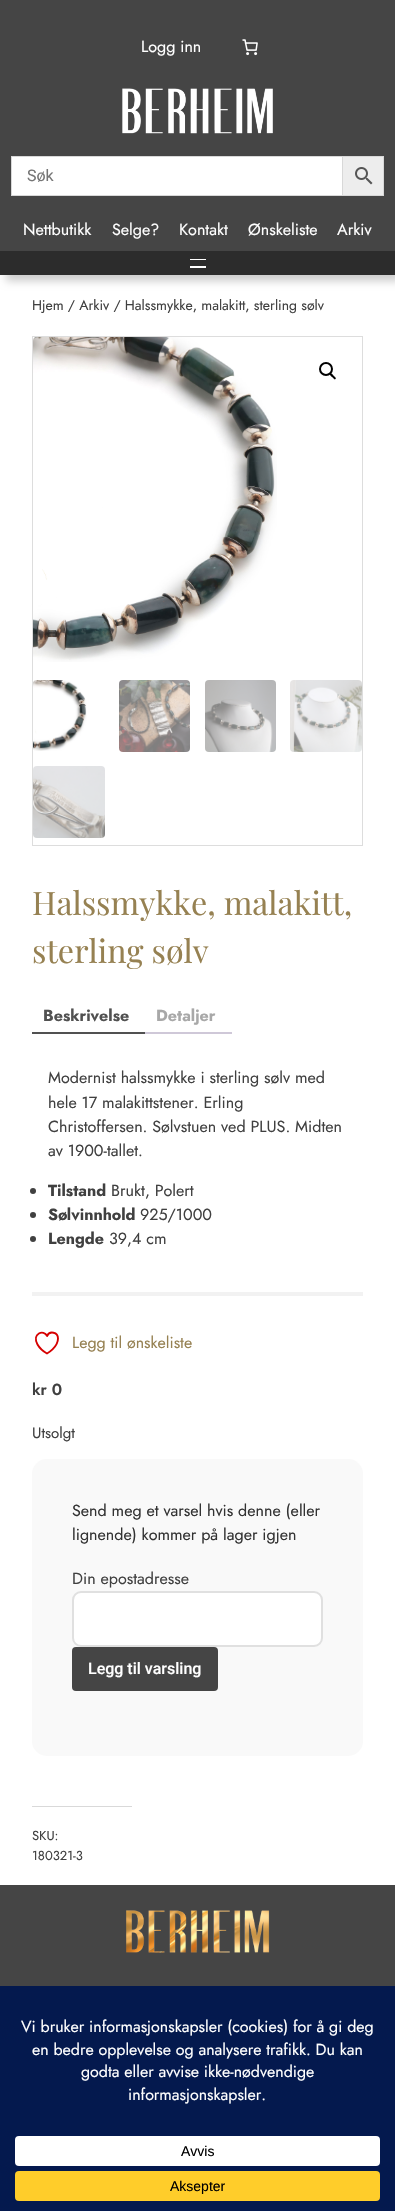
static SkFont makeFont(const char* family, int weight, float size, bool italic = false) {
  SkFontStyle style(weight, SkFontStyle::kNormal_Width,
    italic ? SkFontStyle::kItalic_Slant : SkFontStyle::kUpright_Slant);
  SkFont result(fontMgr->matchFamilyStyle(family, style), size);
  result.setSubpixel(true);
  return result;
}

static void text(SkCanvas* c, const char* s, float x, float y, const SkFont& font, SkColor color) {
  SkPaint ink(SkColor4f::FromColor(color));
  ink.setAntiAlias(true);
  c->drawString(s, x, y, font, ink);
}

static void box(SkCanvas* c, float l, float t, float r, float b, SkColor color) {
  SkPaint ink(SkColor4f::FromColor(color));
  ink.setAntiAlias(true);
  c->drawRect(SkRect::MakeLTRB(l, t, r, b), ink);
}

static void roundBox(SkCanvas* c, float l, float t, float r, float b, float radius, SkColor color) {
  SkPaint ink(SkColor4f::FromColor(color));
  ink.setAntiAlias(true);
  c->drawRoundRect(SkRect::MakeLTRB(l, t, r, b), radius, radius, ink);
}

static void picture(SkCanvas* c, const char* path, float l, float t, float r, float b) {
  auto image = SkImages::DeferredFromEncodedData(SkData::MakeFromFileName(path));
  c->drawImageRect(image, SkRect::MakeLTRB(l, t, r, b), SkSamplingOptions());
}

void draw(SkCanvas* c) {
  SkPaint paint;
  paint.setAntiAlias(true);
  c->clear(0xffffffff);
  paint.setColor(0x33000000);
  paint.setMaskFilter(SkMaskFilter::MakeBlur(kNormal_SkBlurStyle, 4.5f));
  c->drawRect(SkRect::MakeLTRB(6, 257, 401, 281), paint);
  paint.setMaskFilter(nullptr);
  box(c, 0, 0, 395, 251, 0xff454545);
  SkFont face1 = makeFont("Jost", 400, 16.1f);
  text(c, "Logg inn", 141, 52, face1, 0xffffffff);
  picture(c, "img_01.png", 242, 39, 258, 56);
  picture(c, "img_02.png", 122, 88, 273, 134);
  box(c, 12, 157, 342, 195, 0xffffffff);
  paint.setColor(0xffededed);
  c->drawRect(SkRect::MakeLTRB(342.5f, 156.5f, 383.5f, 195.5f), paint);
  paint.setStyle(SkPaint::kStroke_Style);
  paint.setStrokeWidth(1);
  paint.setColor(0xffd8d8d8);
  c->drawRect(SkRect::MakeLTRB(342.5f, 156.5f, 383.5f, 195.5f), paint);
  c->drawRect(SkRect::MakeLTRB(11.5f, 156.5f, 342.5f, 195.5f), paint);
  SkFont face2 = makeFont("Roboto", 400, 16);
  text(c, "Søk", 27, 181, face2, 0xff757575);
  picture(c, "img_03.png", 355, 167, 373, 185);
  text(c, "Nettbutikk", 23, 235, face1, 0xffffffff);
  text(c, "Selge?", 112, 235, face1, 0xffffffff);
  text(c, "Kontakt", 179, 235, face1, 0xffffffff);
  text(c, "Ønskeliste", 248, 235, face1, 0xffffffff);
  text(c, "Arkiv", 337, 235, face1, 0xffffffff);
  box(c, 0, 251, 395, 275, 0xff2c2c2c);
  box(c, 190, 259, 206, 260, 0xffffffff);
  box(c, 190, 266, 206, 268, 0xffffffff);
  SkFont face3 = makeFont("Jost", 400, 14);
  text(c, "Hjem / Arkiv / Halssmykke, malakitt, sterling sølv", 32, 310, face3, 0xff404040);
  paint.setColor(0xffdddddd);
  c->drawRect(SkRect::MakeLTRB(32.5f, 336.5f, 362.5f, 845.5f), paint);
  picture(c, "img_04.png", 33, 337, 277, 662);
  paint.setStrokeWidth(2);
  paint.setColor(0xff000000);
  c->drawCircle(326, 369, 6, paint);
  paint.setStyle(SkPaint::kFill_Style);
  c->drawPath(SkPathBuilder().moveTo(330, 373.5f).cubicTo(331.5f, 372.5f, 333, 375, 333.5f, 375.5f).cubicTo(334, 376.5f, 337, 378, 335.5f, 379).cubicTo(334.5f, 380.5f, 333, 377.5f, 332, 377).cubicTo(331.5f, 376.5f, 329, 374.5f, 330, 373.5f).close().detach(), paint);
  picture(c, "img_05.png", 33, 680, 87, 751);
  picture(c, "img_06.png", 119, 680, 190, 752);
  picture(c, "img_07.png", 205, 680, 276, 752);
  picture(c, "img_08.png", 290, 680, 362, 752);
  picture(c, "img_09.png", 33, 766, 105, 838);
  SkFont face4 = makeFont("Playfair Display", 400, 32.25f);
  text(c, "Halssmykke, malakitt,", 32, 915, face4, 0xff968152);
  text(c, "sterling sølv", 32, 963, face4, 0xff968152);
  box(c, 140, 1032, 232, 1034, 0xffcfc8d8);
  box(c, 32, 1032, 145, 1034, 0xff515151);
  SkFont face5 = makeFont("Jost", 700, 16.1f);
  text(c, "Beskrivelse", 43, 1021, face5, 0xff515151);
  text(c, "Detaljer", 156, 1021, face5, 0xffa8a8a8);
  box(c, 32, 1292, 363, 1296, 0xfff2f2f2);
  text(c, "Modernist halssmykke i sterling sølv med", 48, 1083, face1, 0xff404040);
  text(c, "hele 17 malakittstener. Erling", 48, 1108, face1, 0xff404040);
  text(c, "Christoffersen. Sølvstuen ved PLUS. Midten", 48, 1132, face1, 0xff404040);
  text(c, "av 1900-tallet.", 48, 1156, face1, 0xff404040);
  paint.setColor(0xff404040);
  c->drawCircle(33, 1191, 3, paint);
  text(c, "Tilstand", 48, 1196, face5, 0xff404040);
  text(c, "Brukt, Polert", 111, 1196, face1, 0xff404040);
  c->drawCircle(33, 1215, 3, paint);
  text(c, "Sølvinnhold", 48, 1220, face5, 0xff404040);
  text(c, "925/1000", 140, 1220, face1, 0xff404040);
  c->drawCircle(33, 1239, 3, paint);
  text(c, "Lengde", 48, 1244, face5, 0xff404040);
  text(c, "39,4 cm", 109, 1244, face1, 0xff404040);
  paint.setStyle(SkPaint::kStroke_Style);
  paint.setStrokeWidth(1.9f);
  paint.setStrokeCap(SkPaint::kRound_Cap);
  paint.setStrokeJoin(SkPaint::kRound_Join);
  paint.setColor(0xffd60000);
  c->drawPath(SkPathBuilder().moveTo(58, 1338.5f).cubicTo(58, 1332, 49.5f, 1330.5f, 47, 1336).cubicTo(44, 1329, 31.5f, 1333.5f, 37.5f, 1344.5f).cubicTo(39.5f, 1348, 43.5f, 1351.5f, 47, 1353.5f).cubicTo(47, 1353.5f, 58, 1347.5f, 58, 1338.5f).close().detach(), paint);
  SkFont face6 = makeFont("Jost", 400, 16);
  text(c, "Legg til ønskeliste", 72, 1348, face6, 0xff968152);
  SkFont face7 = makeFont("Jost", 600, 16.1f);
  text(c, "kr 0", 32, 1395, face7, 0xff404040);
  SkFont face8 = makeFont("Jost", 400, 15);
  text(c, "Utsolgt", 32, 1438, face8, 0xff404040);
  roundBox(c, 32, 1459, 363, 1756, 15, 0xfff9f9f9);
  text(c, "Send meg et varsel hvis denne (eller", 72, 1516, face1, 0xff333333);
  text(c, "lignende) kommer på lager igjen", 72, 1540, face1, 0xff333333);
  text(c, "Din epostadresse", 72, 1584, face1, 0xff404040);
  paint.setStyle(SkPaint::kFill_Style);
  paint.setColor(0xffffffff);
  c->drawRoundRect(SkRect::MakeLTRB(73, 1592, 322, 1646), 8, 8, paint);
  paint.setStyle(SkPaint::kStroke_Style);
  paint.setStrokeWidth(2);
  paint.setStrokeCap(SkPaint::kButt_Cap);
  paint.setStrokeJoin(SkPaint::kMiter_Join);
  paint.setColor(0xffe0e0e0);
  c->drawRoundRect(SkRect::MakeLTRB(73, 1592, 322, 1646), 8, 8, paint);
  roundBox(c, 72, 1647, 218, 1691, 4, 0xff454545);
  SkFont face9 = makeFont("Roboto", 500, 16);
  text(c, "Legg til varsling", 88, 1674, face9, 0xffffffff);
  box(c, 32, 1806, 132, 1807, 0xffd9d9d9);
  SkFont face10 = makeFont("Jost", 400, 13);
  text(c, "SKU:", 32, 1840, face10, 0xff404040);
  text(c, "180321-3", 32, 1860, face10, 0xff404040);
  box(c, 0, 1885, 395, 1986, 0xff454545);
  picture(c, "img_10.png", 126, 1910, 270, 1953);
  box(c, 0, 1986, 395, 2211, 0xff04194e);
  text(c, "Vi bruker informasjonskapsler (cookies) for å gi deg", 21, 2032, face6, 0xffffffff);
  text(c, "en bedre opplevelse og analysere trafikk. Du kan", 32, 2055, face6, 0xffffffff);
  text(c, "godta eller avvise ikke-nødvendige", 81, 2077, face6, 0xffffffff);
  text(c, "informasjonskapsler.", 128, 2100, face6, 0xffffffff);
  roundBox(c, 15, 2136, 380, 2166, 4, 0xffffffff);
  SkFont face11 = makeFont("Liberation Sans", 400, 14);
  text(c, "Avvis", 181, 2156, face11, 0xff000000);
  roundBox(c, 15, 2171, 380, 2201, 4, 0xffffcd2a);
  text(c, "Aksepter", 170, 2191, face11, 0xff000000);
}
